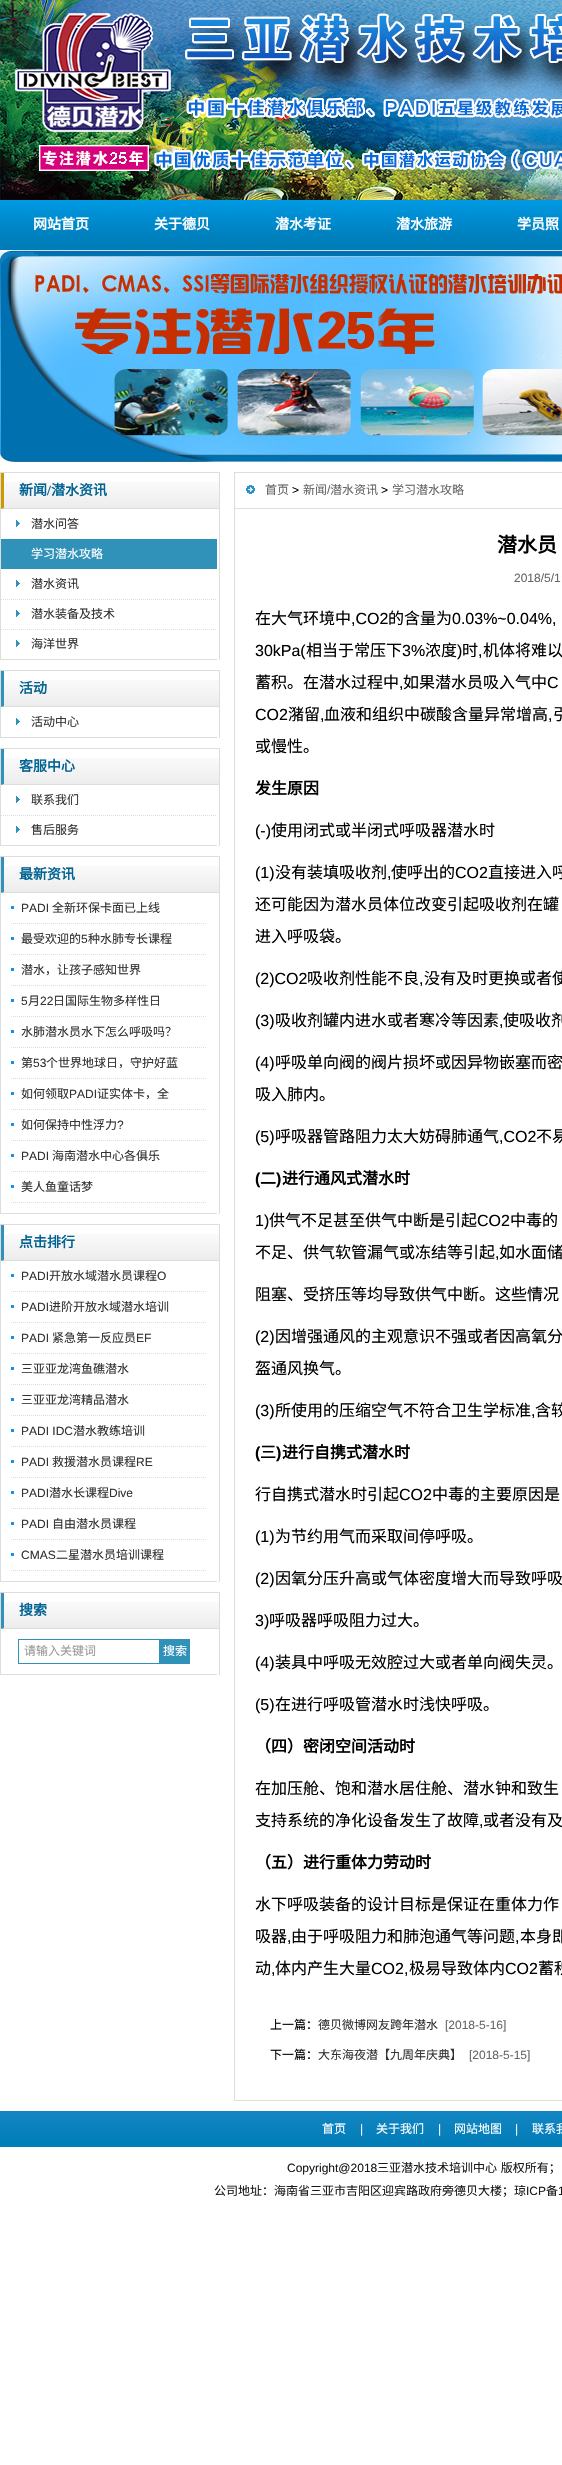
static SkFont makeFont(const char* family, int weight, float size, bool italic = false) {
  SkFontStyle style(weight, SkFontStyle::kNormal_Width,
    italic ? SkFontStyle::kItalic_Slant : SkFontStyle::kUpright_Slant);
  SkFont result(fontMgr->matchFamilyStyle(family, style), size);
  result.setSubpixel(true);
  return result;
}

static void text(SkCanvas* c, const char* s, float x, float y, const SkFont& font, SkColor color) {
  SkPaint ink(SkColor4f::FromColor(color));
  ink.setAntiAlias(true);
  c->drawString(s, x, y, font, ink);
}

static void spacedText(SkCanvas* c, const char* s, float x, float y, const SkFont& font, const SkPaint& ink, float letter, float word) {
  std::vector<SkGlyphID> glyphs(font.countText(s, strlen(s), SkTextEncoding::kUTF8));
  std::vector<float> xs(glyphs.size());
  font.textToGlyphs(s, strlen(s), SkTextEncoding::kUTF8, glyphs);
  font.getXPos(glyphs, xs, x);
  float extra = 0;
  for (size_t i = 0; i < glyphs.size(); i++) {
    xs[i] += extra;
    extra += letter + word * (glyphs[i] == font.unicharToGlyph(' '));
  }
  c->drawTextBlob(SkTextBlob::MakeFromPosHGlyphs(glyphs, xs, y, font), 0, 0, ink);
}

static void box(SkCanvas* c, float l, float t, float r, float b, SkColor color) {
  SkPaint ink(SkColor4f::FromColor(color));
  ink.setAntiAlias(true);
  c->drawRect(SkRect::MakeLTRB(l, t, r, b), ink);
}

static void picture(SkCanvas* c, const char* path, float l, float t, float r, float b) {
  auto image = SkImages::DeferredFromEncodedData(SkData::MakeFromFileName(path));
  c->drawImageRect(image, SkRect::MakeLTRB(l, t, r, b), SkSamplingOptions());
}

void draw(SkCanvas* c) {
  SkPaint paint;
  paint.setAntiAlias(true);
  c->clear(0xffffffff);
  picture(c, "img_01.png", 0, 0, 562, 200);
  picture(c, "img_02.png", 15, 13, 562, 171);
  picture(c, "img_03.png", 0, 200, 562, 250);
  SkFont face1 = makeFont("Noto Sans CJK SC", 700, 14);
  text(c, "网站首页", 33, 229, face1, 0xffffffff);
  text(c, "关于德贝", 154, 229, face1, 0xffffffff);
  text(c, "潜水考证", 275, 229, face1, 0xffffffff);
  text(c, "潜水旅游", 396, 229, face1, 0xffffffff);
  text(c, "学员照", 517, 229, face1, 0xffffffff);
  picture(c, "img_04.png", 0, 250, 562, 462);
  picture(c, "img_05.png", 1, 482, 219, 509);
  box(c, 0, 472, 220, 473, 0xffdddddd);
  box(c, 219, 472, 220, 660, 0xffdddddd);
  box(c, 0, 472, 1, 660, 0xffdddddd);
  paint.setColor(0xffdddddd);
  c->drawPath(SkPathBuilder().moveTo(219, 509).lineTo(1, 509).lineTo(4, 508).lineTo(219, 508).close().detach(), paint);
  paint.setColor(0xffcc9900);
  c->drawPath(SkPathBuilder().moveTo(1, 509).lineTo(1, 473).lineTo(4, 473).lineTo(4, 508).close().detach(), paint);
  text(c, "新闻", 19, 495, face1, 0xff016392);
  SkFont face2 = makeFont("Liberation Serif", 700, 14);
  text(c, "/", 47, 495, face2, 0xff016392);
  text(c, "潜水资讯", 51, 495, face1, 0xff016392);
  box(c, 1, 659, 217, 660, 0xffdddddd);
  picture(c, "img_06.png", 16, 520, 20, 527);
  SkFont face3 = makeFont("Noto Sans CJK SC", 400, 12);
  text(c, "潜水问答", 31, 528, face3, 0xff333333);
  box(c, 1, 539, 217, 569, 0xff3092b9);
  text(c, "学习潜水攻略", 31, 558, face3, 0xffffffff);
  picture(c, "img_06.png", 16, 580, 20, 587);
  paint.setStyle(SkPaint::kStroke_Style);
  paint.setStrokeWidth(1);
  paint.setColor(0xffdddddd);
  paint.setPathEffect(SkDashPathEffect::Make({{1, 1}}, 0));
  c->drawPath(SkPathBuilder().moveTo(1, 599.5f).lineTo(217, 599.5f).detach(), paint);
  paint.setPathEffect(nullptr);
  text(c, "潜水资讯", 31, 588, face3, 0xff333333);
  picture(c, "img_06.png", 16, 610, 20, 617);
  paint.setPathEffect(SkDashPathEffect::Make({{1, 1}}, 0));
  c->drawPath(SkPathBuilder().moveTo(1, 629.5f).lineTo(217, 629.5f).detach(), paint);
  paint.setPathEffect(nullptr);
  text(c, "潜水装备及技术", 31, 618, face3, 0xff333333);
  picture(c, "img_06.png", 16, 640, 20, 647);
  text(c, "海洋世界", 31, 648, face3, 0xff333333);
  picture(c, "img_05.png", 1, 680, 219, 707);
  box(c, 0, 670, 220, 671, 0xffdddddd);
  box(c, 219, 670, 220, 738, 0xffdddddd);
  box(c, 0, 670, 1, 738, 0xffdddddd);
  paint.setStyle(SkPaint::kFill_Style);
  c->drawPath(SkPathBuilder().moveTo(219, 707).lineTo(1, 707).lineTo(4, 706).lineTo(219, 706).close().detach(), paint);
  paint.setColor(0xff3092b9);
  c->drawPath(SkPathBuilder().moveTo(1, 707).lineTo(1, 671).lineTo(4, 671).lineTo(4, 706).close().detach(), paint);
  text(c, "活动", 19, 693, face1, 0xff016392);
  box(c, 1, 737, 217, 738, 0xffdddddd);
  picture(c, "img_06.png", 16, 718, 20, 725);
  text(c, "活动中心", 31, 726, face3, 0xff333333);
  picture(c, "img_05.png", 1, 758, 219, 785);
  box(c, 0, 748, 220, 749, 0xffdddddd);
  box(c, 219, 748, 220, 846, 0xffdddddd);
  box(c, 0, 748, 1, 846, 0xffdddddd);
  paint.setColor(0xffdddddd);
  c->drawPath(SkPathBuilder().moveTo(219, 785).lineTo(1, 785).lineTo(4, 784).lineTo(219, 784).close().detach(), paint);
  paint.setColor(0xff3092b9);
  c->drawPath(SkPathBuilder().moveTo(1, 785).lineTo(1, 749).lineTo(4, 749).lineTo(4, 784).close().detach(), paint);
  text(c, "客服中心", 19, 771, face1, 0xff016392);
  box(c, 1, 845, 217, 846, 0xffdddddd);
  picture(c, "img_06.png", 16, 796, 20, 803);
  paint.setStyle(SkPaint::kStroke_Style);
  paint.setColor(0xffdddddd);
  paint.setPathEffect(SkDashPathEffect::Make({{1, 1}}, 0));
  c->drawPath(SkPathBuilder().moveTo(1, 815.5f).lineTo(217, 815.5f).detach(), paint);
  paint.setPathEffect(nullptr);
  text(c, "联系我们", 31, 804, face3, 0xff333333);
  picture(c, "img_06.png", 16, 826, 20, 833);
  text(c, "售后服务", 31, 834, face3, 0xff333333);
  picture(c, "img_05.png", 1, 866, 219, 893);
  box(c, 0, 856, 220, 857, 0xffdddddd);
  box(c, 219, 856, 220, 1214, 0xffdddddd);
  box(c, 0, 856, 1, 1214, 0xffdddddd);
  paint.setStyle(SkPaint::kFill_Style);
  c->drawPath(SkPathBuilder().moveTo(219, 893).lineTo(1, 893).lineTo(4, 892).lineTo(219, 892).close().detach(), paint);
  paint.setColor(0xff3092b9);
  c->drawPath(SkPathBuilder().moveTo(1, 893).lineTo(1, 857).lineTo(4, 857).lineTo(4, 892).close().detach(), paint);
  text(c, "最新资讯", 19, 879, face1, 0xff016392);
  box(c, 1, 1213, 217, 1214, 0xffdddddd);
  box(c, 11, 906, 14, 909, 0xff0d93f4);
  paint.setStyle(SkPaint::kStroke_Style);
  paint.setColor(0xffdddddd);
  paint.setPathEffect(SkDashPathEffect::Make({{1, 1}}, 0));
  c->drawPath(SkPathBuilder().moveTo(11, 923.5f).lineTo(207, 923.5f).detach(), paint);
  paint.setPathEffect(nullptr);
  SkFont face4 = makeFont("Liberation Sans", 400, 12);
  text(c, "PADI", 21, 912, face4, 0xff333333);
  text(c, "全新环保卡面已上线", 52, 912, face3, 0xff333333);
  box(c, 11, 937, 14, 940, 0xff0d93f4);
  paint.setPathEffect(SkDashPathEffect::Make({{1, 1}}, 0));
  c->drawPath(SkPathBuilder().moveTo(11, 954.5f).lineTo(207, 954.5f).detach(), paint);
  paint.setPathEffect(nullptr);
  text(c, "最受欢迎的", 21, 943, face3, 0xff333333);
  text(c, "5", 81, 943, face4, 0xff333333);
  text(c, "种水肺专长课程", 88, 943, face3, 0xff333333);
  box(c, 11, 968, 14, 971, 0xff0d93f4);
  paint.setPathEffect(SkDashPathEffect::Make({{1, 1}}, 0));
  c->drawPath(SkPathBuilder().moveTo(11, 985.5f).lineTo(207, 985.5f).detach(), paint);
  paint.setPathEffect(nullptr);
  text(c, "潜水，让孩子感知世界", 21, 974, face3, 0xff333333);
  box(c, 11, 999, 14, 1002, 0xff0d93f4);
  paint.setPathEffect(SkDashPathEffect::Make({{1, 1}}, 0));
  c->drawPath(SkPathBuilder().moveTo(11, 1016.5f).lineTo(207, 1016.5f).detach(), paint);
  paint.setPathEffect(nullptr);
  text(c, "5", 21, 1005, face4, 0xff333333);
  text(c, "月", 28, 1005, face3, 0xff333333);
  text(c, "22", 40, 1005, face4, 0xff333333);
  text(c, "日国际生物多样性日", 53, 1005, face3, 0xff333333);
  box(c, 11, 1030, 14, 1033, 0xff0d93f4);
  paint.setPathEffect(SkDashPathEffect::Make({{1, 1}}, 0));
  c->drawPath(SkPathBuilder().moveTo(11, 1047.5f).lineTo(207, 1047.5f).detach(), paint);
  paint.setPathEffect(nullptr);
  text(c, "水肺潜水员水下怎么呼吸吗？", 21, 1036, face3, 0xff333333);
  box(c, 11, 1061, 14, 1064, 0xff0d93f4);
  paint.setPathEffect(SkDashPathEffect::Make({{1, 1}}, 0));
  c->drawPath(SkPathBuilder().moveTo(11, 1078.5f).lineTo(207, 1078.5f).detach(), paint);
  paint.setPathEffect(nullptr);
  text(c, "第", 21, 1067, face3, 0xff333333);
  text(c, "53", 33, 1067, face4, 0xff333333);
  text(c, "个世界地球日，守护好蓝", 46, 1067, face3, 0xff333333);
  box(c, 11, 1092, 14, 1095, 0xff0d93f4);
  paint.setPathEffect(SkDashPathEffect::Make({{1, 1}}, 0));
  c->drawPath(SkPathBuilder().moveTo(11, 1109.5f).lineTo(207, 1109.5f).detach(), paint);
  paint.setPathEffect(nullptr);
  text(c, "如何领取", 21, 1098, face3, 0xff333333);
  text(c, "PADI", 69, 1098, face4, 0xff333333);
  text(c, "证实体卡，全", 97, 1098, face3, 0xff333333);
  box(c, 11, 1123, 14, 1126, 0xff0d93f4);
  paint.setPathEffect(SkDashPathEffect::Make({{1, 1}}, 0));
  c->drawPath(SkPathBuilder().moveTo(11, 1140.5f).lineTo(207, 1140.5f).detach(), paint);
  paint.setPathEffect(nullptr);
  text(c, "如何保持中性浮力", 21, 1129, face3, 0xff333333);
  text(c, "?", 117, 1129, face4, 0xff333333);
  box(c, 11, 1154, 14, 1157, 0xff0d93f4);
  paint.setPathEffect(SkDashPathEffect::Make({{1, 1}}, 0));
  c->drawPath(SkPathBuilder().moveTo(11, 1171.5f).lineTo(207, 1171.5f).detach(), paint);
  paint.setPathEffect(nullptr);
  text(c, "PADI", 21, 1160, face4, 0xff333333);
  text(c, "海南潜水中心各俱乐", 52, 1160, face3, 0xff333333);
  box(c, 11, 1185, 14, 1188, 0xff0d93f4);
  paint.setPathEffect(SkDashPathEffect::Make({{1, 1}}, 0));
  c->drawPath(SkPathBuilder().moveTo(11, 1202.5f).lineTo(207, 1202.5f).detach(), paint);
  paint.setPathEffect(nullptr);
  text(c, "美人鱼童话梦", 21, 1191, face3, 0xff333333);
  picture(c, "img_05.png", 1, 1234, 219, 1261);
  box(c, 0, 1224, 220, 1225, 0xffdddddd);
  box(c, 219, 1224, 220, 1582, 0xffdddddd);
  box(c, 0, 1224, 1, 1582, 0xffdddddd);
  paint.setStyle(SkPaint::kFill_Style);
  c->drawPath(SkPathBuilder().moveTo(219, 1261).lineTo(1, 1261).lineTo(4, 1260).lineTo(219, 1260).close().detach(), paint);
  paint.setColor(0xff3092b9);
  c->drawPath(SkPathBuilder().moveTo(1, 1261).lineTo(1, 1225).lineTo(4, 1225).lineTo(4, 1260).close().detach(), paint);
  text(c, "点击排行", 19, 1247, face1, 0xff016392);
  box(c, 1, 1581, 217, 1582, 0xffdddddd);
  box(c, 11, 1274, 14, 1277, 0xff0d93f4);
  paint.setStyle(SkPaint::kStroke_Style);
  paint.setColor(0xffdddddd);
  paint.setPathEffect(SkDashPathEffect::Make({{1, 1}}, 0));
  c->drawPath(SkPathBuilder().moveTo(11, 1291.5f).lineTo(207, 1291.5f).detach(), paint);
  paint.setPathEffect(nullptr);
  text(c, "PADI", 21, 1280, face4, 0xff333333);
  text(c, "开放水域潜水员课程", 49, 1280, face3, 0xff333333);
  text(c, "O", 157, 1280, face4, 0xff333333);
  box(c, 11, 1305, 14, 1308, 0xff0d93f4);
  paint.setPathEffect(SkDashPathEffect::Make({{1, 1}}, 0));
  c->drawPath(SkPathBuilder().moveTo(11, 1322.5f).lineTo(207, 1322.5f).detach(), paint);
  paint.setPathEffect(nullptr);
  text(c, "PADI", 21, 1311, face4, 0xff333333);
  text(c, "进阶开放水域潜水培训", 49, 1311, face3, 0xff333333);
  box(c, 11, 1336, 14, 1339, 0xff0d93f4);
  paint.setPathEffect(SkDashPathEffect::Make({{1, 1}}, 0));
  c->drawPath(SkPathBuilder().moveTo(11, 1353.5f).lineTo(207, 1353.5f).detach(), paint);
  paint.setPathEffect(nullptr);
  text(c, "PADI", 21, 1342, face4, 0xff333333);
  text(c, "紧急第一反应员", 52, 1342, face3, 0xff333333);
  text(c, "EF", 136, 1342, face4, 0xff333333);
  box(c, 11, 1367, 14, 1370, 0xff0d93f4);
  paint.setPathEffect(SkDashPathEffect::Make({{1, 1}}, 0));
  c->drawPath(SkPathBuilder().moveTo(11, 1384.5f).lineTo(207, 1384.5f).detach(), paint);
  paint.setPathEffect(nullptr);
  text(c, "三亚亚龙湾鱼礁潜水", 21, 1373, face3, 0xff333333);
  box(c, 11, 1398, 14, 1401, 0xff0d93f4);
  paint.setPathEffect(SkDashPathEffect::Make({{1, 1}}, 0));
  c->drawPath(SkPathBuilder().moveTo(11, 1415.5f).lineTo(207, 1415.5f).detach(), paint);
  paint.setPathEffect(nullptr);
  text(c, "三亚亚龙湾精品潜水", 21, 1404, face3, 0xff333333);
  box(c, 11, 1429, 14, 1432, 0xff0d93f4);
  paint.setPathEffect(SkDashPathEffect::Make({{1, 1}}, 0));
  c->drawPath(SkPathBuilder().moveTo(11, 1446.5f).lineTo(207, 1446.5f).detach(), paint);
  paint.setPathEffect(nullptr);
  text(c, "PADI IDC", 21, 1435, face4, 0xff333333);
  text(c, "潜水教练培训", 73, 1435, face3, 0xff333333);
  box(c, 11, 1460, 14, 1463, 0xff0d93f4);
  paint.setPathEffect(SkDashPathEffect::Make({{1, 1}}, 0));
  c->drawPath(SkPathBuilder().moveTo(11, 1477.5f).lineTo(207, 1477.5f).detach(), paint);
  paint.setPathEffect(nullptr);
  text(c, "PADI", 21, 1466, face4, 0xff333333);
  text(c, "救援潜水员课程", 52, 1466, face3, 0xff333333);
  text(c, "RE", 136, 1466, face4, 0xff333333);
  box(c, 11, 1491, 14, 1494, 0xff0d93f4);
  paint.setPathEffect(SkDashPathEffect::Make({{1, 1}}, 0));
  c->drawPath(SkPathBuilder().moveTo(11, 1508.5f).lineTo(207, 1508.5f).detach(), paint);
  paint.setPathEffect(nullptr);
  text(c, "PADI", 21, 1497, face4, 0xff333333);
  text(c, "潜水长课程", 49, 1497, face3, 0xff333333);
  text(c, "Dive", 109, 1497, face4, 0xff333333);
  box(c, 11, 1522, 14, 1525, 0xff0d93f4);
  paint.setPathEffect(SkDashPathEffect::Make({{1, 1}}, 0));
  c->drawPath(SkPathBuilder().moveTo(11, 1539.5f).lineTo(207, 1539.5f).detach(), paint);
  paint.setPathEffect(nullptr);
  text(c, "PADI", 21, 1528, face4, 0xff333333);
  text(c, "自由潜水员课程", 52, 1528, face3, 0xff333333);
  box(c, 11, 1553, 14, 1556, 0xff0d93f4);
  paint.setPathEffect(SkDashPathEffect::Make({{1, 1}}, 0));
  c->drawPath(SkPathBuilder().moveTo(11, 1570.5f).lineTo(207, 1570.5f).detach(), paint);
  paint.setPathEffect(nullptr);
  text(c, "CMAS", 21, 1559, face4, 0xff333333);
  text(c, "二星潜水员培训课程", 56, 1559, face3, 0xff333333);
  picture(c, "img_05.png", 1, 1602, 219, 1629);
  box(c, 0, 1592, 220, 1593, 0xffdddddd);
  box(c, 219, 1592, 220, 1675, 0xffdddddd);
  box(c, 0, 1592, 1, 1675, 0xffdddddd);
  paint.setStyle(SkPaint::kFill_Style);
  c->drawPath(SkPathBuilder().moveTo(219, 1629).lineTo(1, 1629).lineTo(4, 1628).lineTo(219, 1628).close().detach(), paint);
  paint.setColor(0xff3092b9);
  c->drawPath(SkPathBuilder().moveTo(1, 1629).lineTo(1, 1593).lineTo(4, 1593).lineTo(4, 1628).close().detach(), paint);
  text(c, "搜索", 19, 1615, face1, 0xff016392);
  box(c, 1, 1674, 217, 1675, 0xffdddddd);
  paint.setStyle(SkPaint::kStroke_Style);
  c->drawRect(SkRect::MakeLTRB(18.5f, 1639.5f, 159.5f, 1663.5f), paint);
  text(c, "请输入关键词", 24, 1655, face3, 0xff999999);
  box(c, 160, 1639, 190, 1664, 0xff3092b9);
  text(c, "搜索", 163, 1655, face3, 0xffffffff);
  paint.setColor(0xffdddddd);
  c->drawRect(SkRect::MakeLTRB(234.5f, 472.5f, 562.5f, 2100.5f), paint);
  box(c, 235, 508, 562, 509, 0xffdddddd);
  picture(c, "img_07.png", 246, 485, 255, 494);
  text(c, "首页", 265, 494, face3, 0xff666666);
  text(c, ">", 292, 494, face4, 0xff000000);
  text(c, "新闻", 303, 494, face3, 0xff666666);
  text(c, "/", 327, 494, face4, 0xff666666);
  text(c, "潜水资讯", 330, 494, face3, 0xff666666);
  text(c, ">", 381, 494, face4, 0xff000000);
  text(c, "学习潜水攻略", 392, 494, face3, 0xff666666);
  SkFont face5 = makeFont("Noto Sans CJK SC", 700, 20);
  text(c, "潜水员", 497, 552, face5, 0xff000000);
  text(c, "2018/5/1", 514, 582, face4, 0xff666666);
  SkFont face6 = makeFont("Noto Sans CJK SC", 400, 16);
  text(c, "在大气环境中", 255, 624, face6, 0xff000000);
  SkFont face7 = makeFont("Liberation Sans", 400, 16);
  text(c, ",CO2", 351, 624, face7, 0xff000000);
  text(c, "的含量为", 388, 624, face6, 0xff000000);
  text(c, "0.03%~0.04%,", 452, 624, face7, 0xff000000);
  text(c, "30kPa(", 255, 656, face7, 0xff000000);
  text(c, "相当于常压下", 306, 656, face6, 0xff000000);
  text(c, "3%", 402, 656, face7, 0xff000000);
  text(c, "浓度", 425, 656, face6, 0xff000000);
  text(c, ")", 457, 656, face7, 0xff000000);
  text(c, "时", 462, 656, face6, 0xff000000);
  text(c, ",", 478, 656, face7, 0xff000000);
  text(c, "机体将难以", 483, 656, face6, 0xff000000);
  text(c, "蓄积。在潜水过程中", 255, 688, face6, 0xff000000);
  text(c, ",", 399, 688, face7, 0xff000000);
  text(c, "如果潜水员吸入气中", 403, 688, face6, 0xff000000);
  text(c, "C", 547, 688, face7, 0xff000000);
  text(c, "CO2", 255, 720, face7, 0xff000000);
  text(c, "潴留", 288, 720, face6, 0xff000000);
  text(c, ",", 320, 720, face7, 0xff000000);
  text(c, "血液和组织中碳酸含量异常增高", 324, 720, face6, 0xff000000);
  text(c, ",", 548, 720, face7, 0xff000000);
  text(c, "引", 553, 720, face6, 0xff000000);
  text(c, "或慢性。", 255, 752, face6, 0xff000000);
  SkFont face8 = makeFont("Noto Sans CJK SC", 700, 16);
  text(c, "发生原因", 255, 794, face8, 0xff000000);
  text(c, "(-)", 255, 836, face7, 0xff000000);
  text(c, "使用闭式或半闭式呼吸器潜水时", 271, 836, face6, 0xff000000);
  text(c, "(1)", 255, 878, face7, 0xff000000);
  text(c, "没有装填吸收剂", 275, 878, face6, 0xff000000);
  text(c, ",", 387, 878, face7, 0xff000000);
  text(c, "使呼出的", 391, 878, face6, 0xff000000);
  text(c, "CO2", 455, 878, face7, 0xff000000);
  text(c, "直接进入呼", 488, 878, face6, 0xff000000);
  text(c, "还可能因为潜水员体位改变引起吸收剂在罐", 255, 910, face6, 0xff000000);
  text(c, "进入呼吸袋。", 255, 942, face6, 0xff000000);
  text(c, "(2)CO2", 255, 984, face7, 0xff000000);
  text(c, "吸收剂性能不良", 307, 984, face6, 0xff000000);
  text(c, ",", 419, 984, face7, 0xff000000);
  text(c, "没有及时更换或者使", 424, 984, face6, 0xff000000);
  text(c, "(3)", 255, 1026, face7, 0xff000000);
  text(c, "吸收剂罐内进水或者寒冷等因素", 275, 1026, face6, 0xff000000);
  text(c, ",", 499, 1026, face7, 0xff000000);
  text(c, "使吸收剂", 503, 1026, face6, 0xff000000);
  text(c, "(4)", 255, 1068, face7, 0xff000000);
  text(c, "呼吸单向阀的阀片损坏或因异物嵌塞而密", 275, 1068, face6, 0xff000000);
  text(c, "吸入肺内。", 255, 1100, face6, 0xff000000);
  text(c, "(5)", 255, 1142, face7, 0xff000000);
  text(c, "呼吸器管路阻力太大妨碍肺通气", 275, 1142, face6, 0xff000000);
  text(c, ",CO2", 499, 1142, face7, 0xff000000);
  text(c, "不易", 536, 1142, face6, 0xff000000);
  SkFont face9 = makeFont("Liberation Sans", 700, 16);
  text(c, "(", 255, 1184, face9, 0xff000000);
  text(c, "二", 260, 1184, face8, 0xff000000);
  text(c, ")", 276, 1184, face9, 0xff000000);
  text(c, "进行通风式潜水时", 282, 1184, face8, 0xff000000);
  text(c, "1)", 255, 1226, face7, 0xff000000);
  text(c, "供气不足甚至供气中断是引起", 269, 1226, face6, 0xff000000);
  text(c, "CO2", 477, 1226, face7, 0xff000000);
  text(c, "中毒的", 510, 1226, face6, 0xff000000);
  text(c, "不足、供气软管漏气或冻结等引起", 255, 1258, face6, 0xff000000);
  text(c, ",", 495, 1258, face7, 0xff000000);
  text(c, "如水面储", 499, 1258, face6, 0xff000000);
  text(c, "阻塞、受挤压等均导致供气中断。这些情况", 255, 1300, face6, 0xff000000);
  text(c, "(2)", 255, 1342, face7, 0xff000000);
  text(c, "因增强通风的主观意识不强或者因高氧分", 275, 1342, face6, 0xff000000);
  text(c, "盔通风换气。", 255, 1374, face6, 0xff000000);
  text(c, "(3)", 255, 1416, face7, 0xff000000);
  text(c, "所使用的压缩空气不符合卫生学标准", 275, 1416, face6, 0xff000000);
  text(c, ",", 531, 1416, face7, 0xff000000);
  text(c, "含较", 535, 1416, face6, 0xff000000);
  text(c, "(", 255, 1458, face9, 0xff000000);
  text(c, "三", 260, 1458, face8, 0xff000000);
  text(c, ")", 276, 1458, face9, 0xff000000);
  text(c, "进行自携式潜水时", 282, 1458, face8, 0xff000000);
  text(c, "行自携式潜水时引起", 255, 1500, face6, 0xff000000);
  text(c, "CO2", 399, 1500, face7, 0xff000000);
  text(c, "中毒的主要原因是", 432, 1500, face6, 0xff000000);
  text(c, "(1)", 255, 1542, face7, 0xff000000);
  text(c, "为节约用气而采取间停呼吸。", 275, 1542, face6, 0xff000000);
  text(c, "(2)", 255, 1584, face7, 0xff000000);
  text(c, "因氧分压升高或气体密度增大而导致呼吸", 275, 1584, face6, 0xff000000);
  text(c, "3)", 255, 1626, face7, 0xff000000);
  text(c, "呼吸器呼吸阻力过大。", 269, 1626, face6, 0xff000000);
  text(c, "(4)", 255, 1668, face7, 0xff000000);
  text(c, "装具中呼吸无效腔过大或者单向阀失灵。", 275, 1668, face6, 0xff000000);
  text(c, "(5)", 255, 1710, face7, 0xff000000);
  text(c, "在进行呼吸管潜水时浅快呼吸。", 275, 1710, face6, 0xff000000);
  text(c, "（四）密闭空间活动时", 255, 1752, face8, 0xff000000);
  text(c, "在加压舱、饱和潜水居住舱、潜水钟和致生", 255, 1794, face6, 0xff000000);
  text(c, "支持系统的净化设备发生了故障", 255, 1826, face6, 0xff000000);
  text(c, ",", 479, 1826, face7, 0xff000000);
  text(c, "或者没有及", 483, 1826, face6, 0xff000000);
  text(c, "（五）进行重体力劳动时", 255, 1868, face8, 0xff000000);
  text(c, "水下呼吸装备的设计目标是保证在重体力作", 255, 1910, face6, 0xff000000);
  text(c, "吸器", 255, 1942, face6, 0xff000000);
  text(c, ",", 287, 1942, face7, 0xff000000);
  text(c, "由于呼吸阻力和肺泡通气等问题", 291, 1942, face6, 0xff000000);
  text(c, ",", 515, 1942, face7, 0xff000000);
  text(c, "本身即", 520, 1942, face6, 0xff000000);
  text(c, "动", 255, 1974, face6, 0xff000000);
  text(c, ",", 271, 1974, face7, 0xff000000);
  text(c, "体内产生大量", 275, 1974, face6, 0xff000000);
  text(c, "CO2,", 371, 1974, face7, 0xff000000);
  text(c, "极易导致体内", 409, 1974, face6, 0xff000000);
  text(c, "CO2", 505, 1974, face7, 0xff000000);
  text(c, "蓄积", 538, 1974, face6, 0xff000000);
  text(c, "上一篇：", 270, 2029, face3, 0xff000000);
  text(c, "德贝微博网友跨年潜水", 318, 2029, face3, 0xff333333);
  text(c, "[2018-5-16]", 445, 2029, face4, 0xff666666);
  text(c, "下一篇：", 270, 2059, face3, 0xff000000);
  text(c, "大东海夜潜【九周年庆典】", 318, 2059, face3, 0xff333333);
  text(c, "[2018-5-15]", 469, 2059, face4, 0xff666666);
  picture(c, "img_08.png", 0, 2111, 562, 2147);
  text(c, "首页", 322, 2133, face3, 0xffffffff);
  text(c, "|", 360, 2133, face4, 0xffffffff);
  text(c, "关于我们", 376, 2133, face3, 0xffffffff);
  text(c, "|", 438, 2133, face4, 0xffffffff);
  text(c, "网站地图", 454, 2133, face3, 0xffffffff);
  text(c, "|", 515, 2133, face4, 0xffffffff);
  text(c, "联系我", 532, 2133, face3, 0xffffffff);
  text(c, "Copyright@2018", 287, 2172, face4, 0xff191919);
  paint.setStyle(SkPaint::kFill_Style);
  paint.setColor(0xff191919);
  spacedText(c, "三亚潜水技术培训中心 版权所有；", 377, 2172, face3, paint, 0, 1);
  text(c, "公司地址：海南省三亚市吉阳区迎宾路政府旁德贝大楼；琼", 214, 2195, face3, 0xff191919);
  text(c, "ICP", 526, 2195, face4, 0xff191919);
  text(c, "备", 546, 2195, face3, 0xff191919);
  text(c, "1", 558, 2195, face4, 0xff191919);
}
